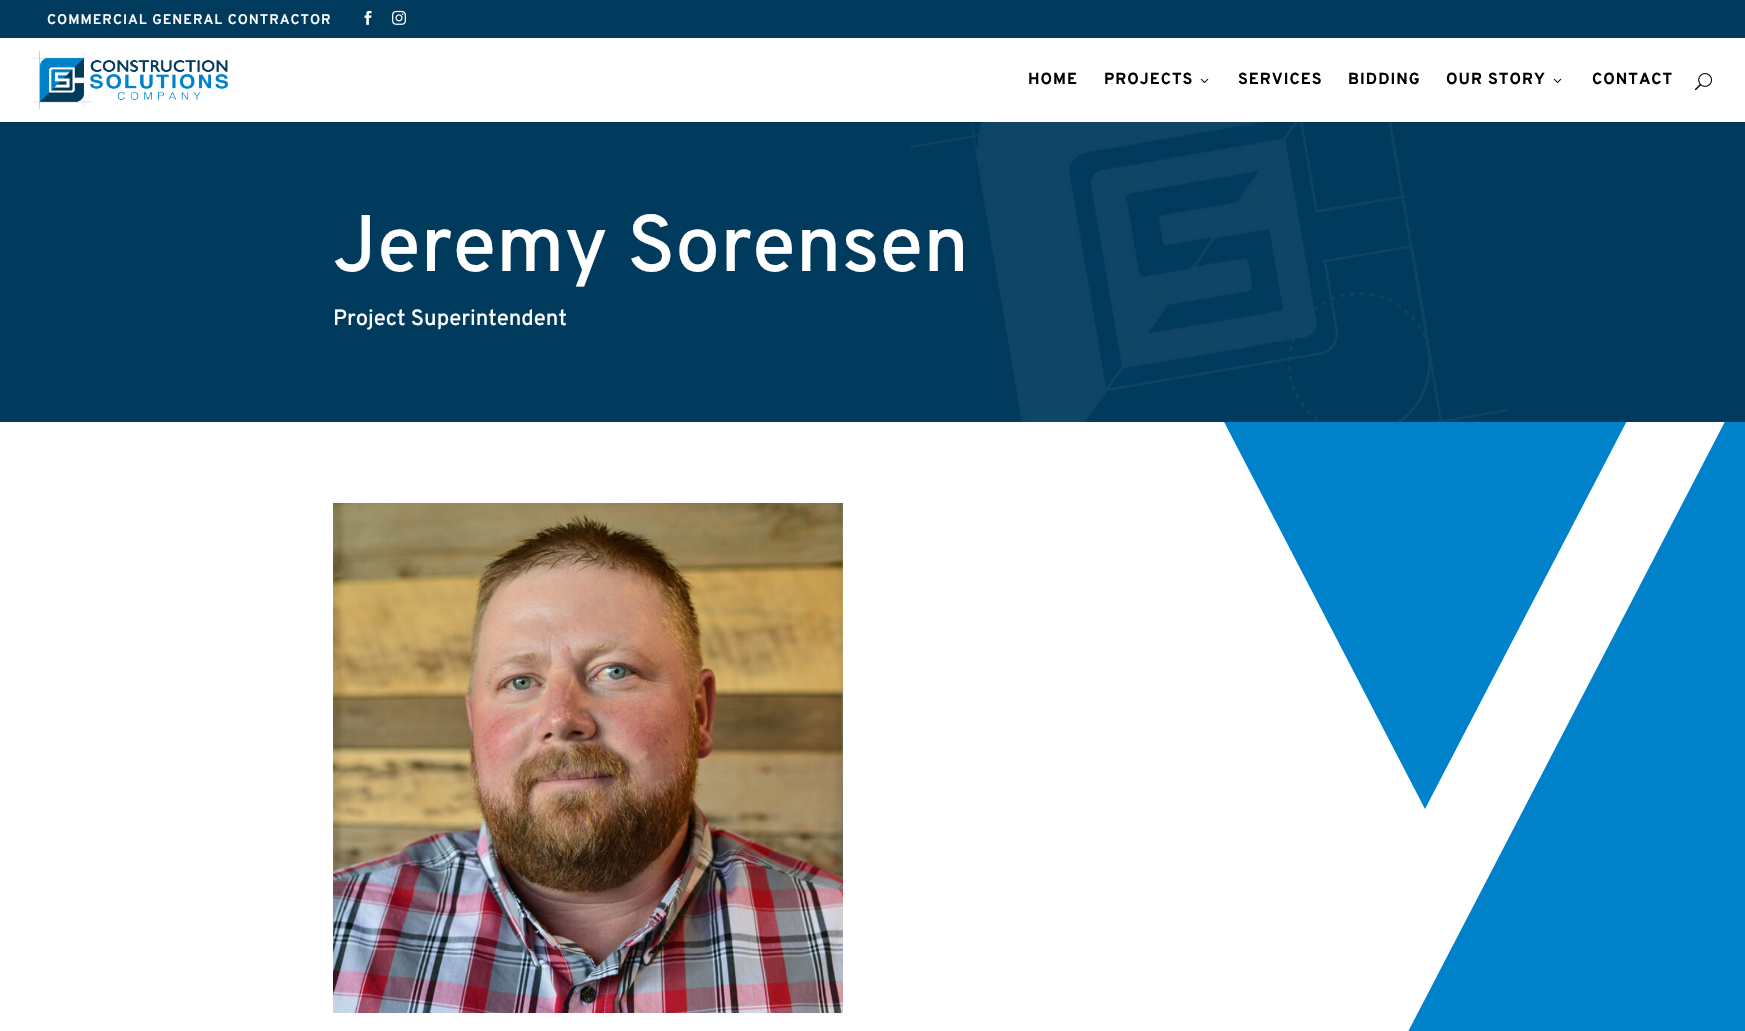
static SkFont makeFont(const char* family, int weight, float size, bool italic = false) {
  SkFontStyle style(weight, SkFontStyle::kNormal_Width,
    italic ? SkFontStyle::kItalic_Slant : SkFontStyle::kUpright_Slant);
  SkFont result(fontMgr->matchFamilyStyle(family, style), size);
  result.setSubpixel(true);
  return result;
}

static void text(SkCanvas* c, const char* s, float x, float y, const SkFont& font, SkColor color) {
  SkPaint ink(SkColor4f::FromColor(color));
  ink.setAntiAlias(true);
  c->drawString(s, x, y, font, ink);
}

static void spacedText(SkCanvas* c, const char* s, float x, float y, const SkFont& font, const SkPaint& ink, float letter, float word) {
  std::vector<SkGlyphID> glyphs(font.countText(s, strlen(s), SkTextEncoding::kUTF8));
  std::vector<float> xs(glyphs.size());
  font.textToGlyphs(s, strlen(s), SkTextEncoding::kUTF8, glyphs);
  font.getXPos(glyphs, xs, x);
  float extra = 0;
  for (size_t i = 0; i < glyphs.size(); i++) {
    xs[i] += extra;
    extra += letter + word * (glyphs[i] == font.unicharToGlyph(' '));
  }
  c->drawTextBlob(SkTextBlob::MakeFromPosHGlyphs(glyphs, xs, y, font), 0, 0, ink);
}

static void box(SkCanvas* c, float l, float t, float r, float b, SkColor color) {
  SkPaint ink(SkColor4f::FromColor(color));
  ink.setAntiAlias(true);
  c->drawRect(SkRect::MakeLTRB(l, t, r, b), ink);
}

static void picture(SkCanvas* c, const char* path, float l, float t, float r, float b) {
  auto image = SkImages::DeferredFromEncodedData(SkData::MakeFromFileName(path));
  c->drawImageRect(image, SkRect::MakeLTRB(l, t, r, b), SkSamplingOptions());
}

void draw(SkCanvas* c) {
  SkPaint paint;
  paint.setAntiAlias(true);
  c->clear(0xffffffff);
  box(c, 0, 0, 1745, 38, 0xff003a5d);
  SkFont face1 = makeFont("Overpass", 600, 14);
  paint.setColor(0xffffffff);
  spacedText(c, "COMMERCIAL GENERAL CONTRACTOR", 47, 24, face1, paint, 1, 0);
  picture(c, "img_01.png", 364, 10, 372, 25);
  picture(c, "img_02.png", 392, 10, 406, 25);
  box(c, 0, 122, 1745, 422, 0xff003a5d);
  picture(c, "img_06.png", 910, 122, 1507, 422);
  box(c, 0, 122, 1745, 123, 0x1a000000);
  picture(c, "img_03.png", 33, 51, 228, 109);
  SkFont face2 = makeFont("Overpass", 700, 16);
  paint.setColor(0xff000000);
  spacedText(c, "HOME", 1028, 84, face2, paint, 1, 0);
  spacedText(c, "PROJECTS", 1104, 84, face2, paint, 1, 0);
  picture(c, "img_04.png", 1200, 78, 1209, 83);
  spacedText(c, "SERVICES", 1238, 84, face2, paint, 1, 0);
  spacedText(c, "BIDDING", 1348, 84, face2, paint, 1, 0);
  spacedText(c, "OUR STORY", 1446, 84, face2, paint, 1, 0);
  picture(c, "img_04.png", 1553, 78, 1562, 83);
  spacedText(c, "CONTACT", 1592, 84, face2, paint, 1, 0);
  picture(c, "img_05.png", 1695, 73, 1712, 91);
  SkFont face3 = makeFont("Overpass", 500, 80);
  text(c, "Jeremy Sorensen", 333, 271, face3, 0xffffffff);
  SkFont face4 = makeFont("Overpass", 500, 22);
  text(c, "Project Superintendent", 333, 325, face4, 0xffffffff);
  box(c, 1224, 422, 1745, 1031, 0xff0082cb);
  c->save();
  c->clipRect(SkRect::MakeLTRB(0, 422, 1745, 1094));
  paint.setColor(0xffffffff);
  c->drawPath(SkPathBuilder().moveTo(1745, 194).lineTo(1425, 809).lineTo(1059, 104).lineTo(0, 104).lineTo(0, 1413).lineTo(1210, 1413).lineTo(1745, 383).close().detach(), paint);
  c->restore();
  picture(c, "img_07.png", 333, 503, 843, 1013);
}
